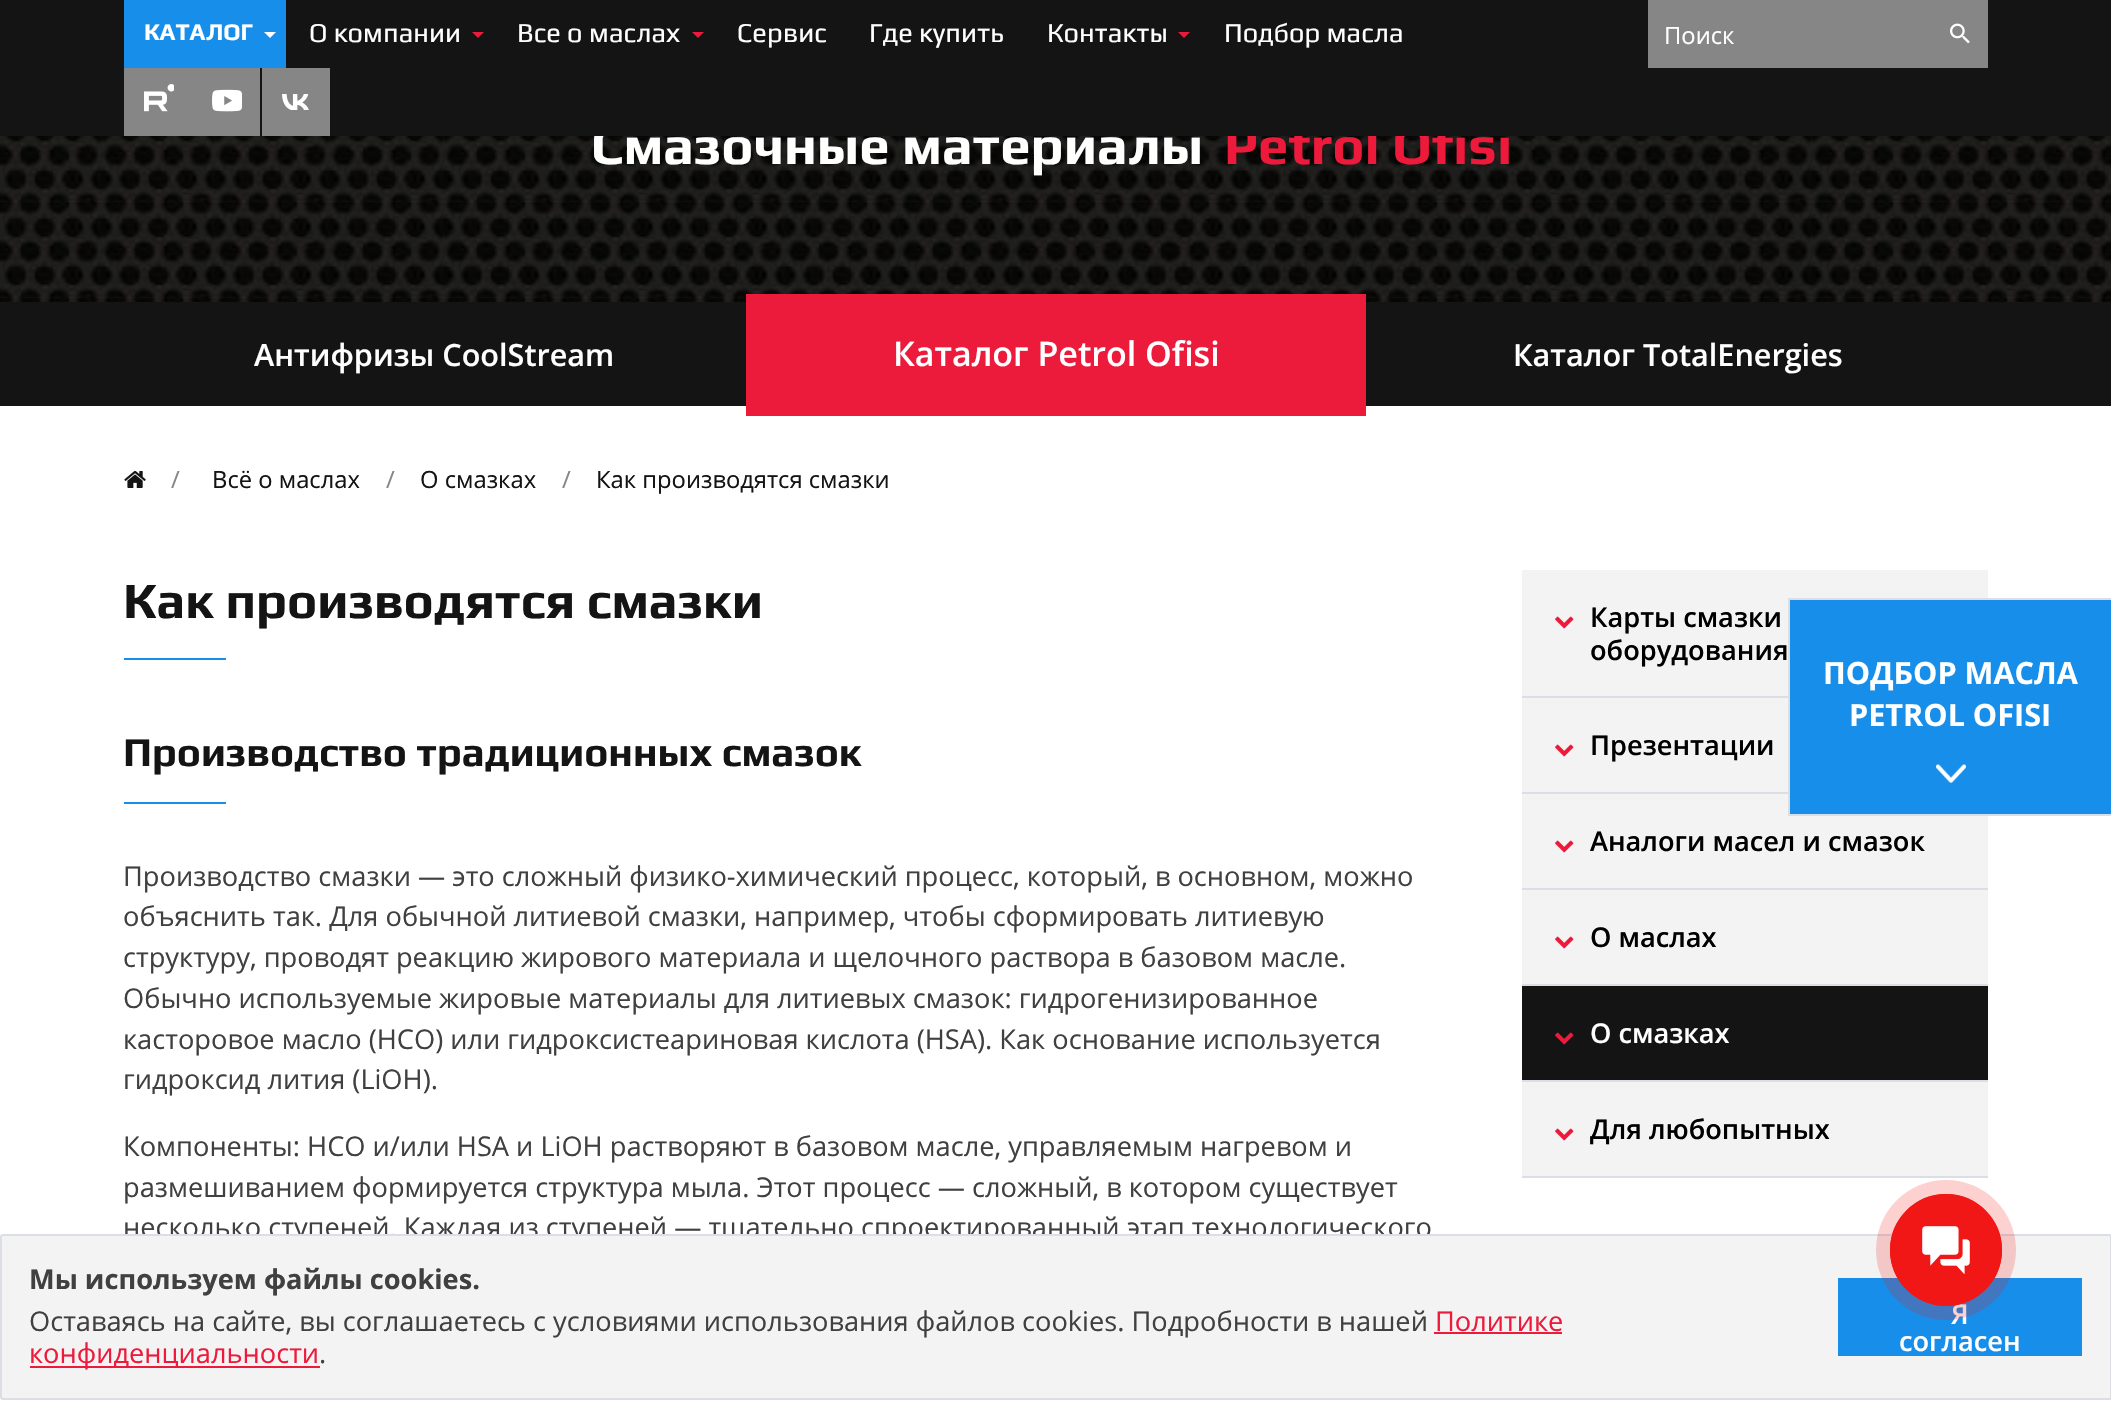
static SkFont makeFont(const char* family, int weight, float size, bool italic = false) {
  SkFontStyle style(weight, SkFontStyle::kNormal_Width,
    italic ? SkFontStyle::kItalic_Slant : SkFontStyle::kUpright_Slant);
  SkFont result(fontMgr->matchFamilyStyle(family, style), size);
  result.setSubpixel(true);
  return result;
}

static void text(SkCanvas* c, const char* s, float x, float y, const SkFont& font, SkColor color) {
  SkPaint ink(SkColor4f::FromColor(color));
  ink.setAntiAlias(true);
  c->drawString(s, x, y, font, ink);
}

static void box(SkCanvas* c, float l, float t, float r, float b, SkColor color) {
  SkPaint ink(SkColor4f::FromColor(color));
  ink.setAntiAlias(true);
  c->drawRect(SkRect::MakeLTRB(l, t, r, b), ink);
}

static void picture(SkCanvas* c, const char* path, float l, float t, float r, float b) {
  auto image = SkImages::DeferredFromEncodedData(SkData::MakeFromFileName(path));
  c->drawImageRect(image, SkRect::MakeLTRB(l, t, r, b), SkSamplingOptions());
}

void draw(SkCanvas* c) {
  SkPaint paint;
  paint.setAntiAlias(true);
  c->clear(0xffffffff);
  picture(c, "img_05.png", 0, 136, 2111, 302);
  SkFont face1 = makeFont("Play", 700, 54.4f);
  text(c, "Смазочные материалы", 591, 164, face1, 0xffffffff);
  text(c, "Petrol Ofisi", 1224, 164, face1, 0xffed1a3b);
  box(c, 0, 0, 2111, 136, 0xff141415);
  box(c, 124, 0, 286, 68, 0xff168eea);
  SkFont face2 = makeFont("Play", 700, 23.75f);
  text(c, "КАТАЛОГ", 144, 40, face2, 0xffffffff);
  paint.setColor(0xffffffff);
  c->drawPath(SkPathBuilder().moveTo(264, 32).lineTo(276, 32).lineTo(270, 38).close().detach(), paint);
  SkFont face3 = makeFont("Play", 400, 27.2f);
  text(c, "О компании", 309, 42, face3, 0xffffffff);
  paint.setColor(0xffec1a3b);
  c->drawPath(SkPathBuilder().moveTo(472, 32).lineTo(484, 32).lineTo(478, 38).close().detach(), paint);
  text(c, "Все о маслах", 517, 42, face3, 0xffffffff);
  c->drawPath(SkPathBuilder().moveTo(692, 32).lineTo(704, 32).lineTo(698, 38).close().detach(), paint);
  text(c, "Сервис", 737, 42, face3, 0xffffffff);
  text(c, "Где купить", 869, 42, face3, 0xffffffff);
  text(c, "Контакты", 1047, 42, face3, 0xffffffff);
  c->drawPath(SkPathBuilder().moveTo(1178, 32).lineTo(1190, 32).lineTo(1184, 38).close().detach(), paint);
  text(c, "Подбор масла", 1224, 42, face3, 0xffffffff);
  box(c, 1648, 0, 1988, 68, 0xff868686);
  SkFont face4 = makeFont("Open Sans", 400, 23.75f);
  text(c, "Поиск", 1664, 44, face4, 0xffffffff);
  picture(c, "img_01.png", 1950, 23, 1970, 44);
  box(c, 124, 68, 260, 136, 0xff868686);
  picture(c, "img_02.png", 144, 84, 174, 112);
  box(c, 262, 68, 330, 136, 0xff868686);
  picture(c, "img_03.png", 282, 94, 309, 110);
  picture(c, "img_04.png", 212, 89, 242, 112);
  box(c, 0, 302, 746, 406, 0xff141415);
  SkFont face5 = makeFont("Open Sans", 600, 30.6f);
  text(c, "Антифризы CoolStream", 254, 366, face5, 0xffffffff);
  box(c, 746, 294, 1366, 416, 0xffec1a3b);
  SkFont face6 = makeFont("Open Sans", 600, 34);
  text(c, "Каталог Petrol Ofisi", 893, 366, face6, 0xffffffff);
  box(c, 1366, 302, 2111, 406, 0xff141415);
  text(c, "Каталог TotalEnergies", 1513, 366, face5, 0xffffffff);
  picture(c, "img_06.png", 124, 471, 146, 488);
  text(c, "/", 171, 488, face4, 0xff868686);
  text(c, "Всё о маслах", 212, 488, face4, 0xff141415);
  text(c, "/", 386, 488, face4, 0xff868686);
  text(c, "О смазках", 420, 488, face4, 0xff141415);
  text(c, "/", 562, 488, face4, 0xff868686);
  text(c, "Как производятся смазки", 596, 488, face4, 0xff141415);
  SkFont face7 = makeFont("Play", 700, 51);
  text(c, "Как производятся смазки", 123, 618, face7, 0xff141415);
  box(c, 124, 658, 226, 660, 0xff168eea);
  SkFont face8 = makeFont("Play", 700, 40.75f);
  text(c, "Производство традиционных смазок", 123, 766, face8, 0xff141415);
  box(c, 124, 802, 226, 804, 0xff168eea);
  SkFont face9 = makeFont("Open Sans", 400, 27.2f);
  text(c, "Производство смазки — это сложный физико-химический процесс, который, в основном, можно", 123, 886, face9, 0xff404040);
  text(c, "объяснить так. Для обычной литиевой смазки, например, чтобы сформировать литиевую", 123, 926, face9, 0xff404040);
  text(c, "структуру, проводят реакцию жирового материала и щелочного раствора в базовом масле.", 123, 967, face9, 0xff404040);
  text(c, "Обычно используемые жировые материалы для литиевых смазок: гидрогенизированное", 123, 1008, face9, 0xff404040);
  text(c, "касторовое масло (HCO) или гидроксистеариновая кислота (HSA). Как основание используется", 123, 1049, face9, 0xff404040);
  text(c, "гидроксид лития (LiOH).", 123, 1089, face9, 0xff404040);
  text(c, "Компоненты: HCO и/или HSA и LiOH растворяют в базовом масле, управляемым нагревом и", 123, 1156, face9, 0xff404040);
  text(c, "размешиванием формируется структура мыла. Этот процесс — сложный, в котором существует", 123, 1197, face9, 0xff404040);
  text(c, "несколько ступеней. Каждая из ступеней — тщательно спроектированный этап технологического", 123, 1237, face9, 0xff404040);
  box(c, 1522, 696, 1788, 698, 0xffdbdfe5);
  box(c, 1522, 570, 1988, 696, 0xfff3f3f3);
  picture(c, "img_07.png", 1555, 616, 1574, 629);
  SkFont face10 = makeFont("Open Sans", 600, 27.2f);
  text(c, "Карты смазки", 1590, 627, face10, 0xff000000);
  text(c, "оборудования", 1590, 660, face10, 0xff000000);
  box(c, 1522, 792, 1788, 794, 0xffdbdfe5);
  box(c, 1522, 698, 1788, 792, 0xfff3f3f3);
  picture(c, "img_07.png", 1555, 744, 1574, 757);
  text(c, "Презентации", 1590, 755, face10, 0xff000000);
  box(c, 1522, 888, 1988, 890, 0xffdbdfe5);
  box(c, 1522, 794, 1988, 888, 0xfff3f3f3);
  picture(c, "img_07.png", 1555, 840, 1574, 853);
  text(c, "Aналоги масел и смазок", 1590, 851, face10, 0xff000000);
  box(c, 1522, 984, 1988, 986, 0xffdbdfe5);
  box(c, 1522, 890, 1988, 984, 0xfff3f3f3);
  picture(c, "img_07.png", 1555, 936, 1574, 949);
  text(c, "О маслах", 1590, 947, face10, 0xff000000);
  box(c, 1522, 1080, 1988, 1082, 0xffdbdfe5);
  box(c, 1522, 986, 1988, 1080, 0xff141415);
  picture(c, "img_08.png", 1555, 1032, 1574, 1045);
  text(c, "О смазках", 1590, 1043, face10, 0xffffffff);
  box(c, 1522, 1176, 1988, 1178, 0xffdbdfe5);
  box(c, 1522, 1082, 1988, 1176, 0xfff3f3f3);
  picture(c, "img_07.png", 1555, 1128, 1574, 1141);
  text(c, "Для любопытных", 1590, 1139, face10, 0xff000000);
  box(c, 1790, 600, 2111, 814, 0xff168eea);
  box(c, 1788, 598, 2111, 600, 0xffdbdfe5);
  box(c, 1788, 814, 2111, 816, 0xffdbdfe5);
  box(c, 1788, 598, 1790, 816, 0xffdbdfe5);
  SkFont face11 = makeFont("Open Sans", 700, 30.6f);
  text(c, "ПОДБОР МАСЛА", 1823, 684, face11, 0xffffffff);
  text(c, "PETROL OFISI", 1849, 726, face11, 0xffffffff);
  picture(c, "img_09.png", 1936, 764, 1966, 783);
  paint.setColor(0xfff3f3f3);
  c->drawRoundRect(SkRect::MakeLTRB(1, 1235, 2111, 1399), 2, 2, paint);
  paint.setStyle(SkPaint::kStroke_Style);
  paint.setStrokeWidth(2);
  paint.setColor(0xffdbdfe5);
  c->drawRoundRect(SkRect::MakeLTRB(1, 1235, 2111, 1399), 2, 2, paint);
  box(c, 1838, 1278, 2082, 1356, 0xff168eea);
  text(c, "Я", 1951, 1324, face10, 0xffffffff);
  paint.setStyle(SkPaint::kFill_Style);
  paint.setColor(0x33f11716);
  c->drawCircle(1946, 1250, 70, paint);
  paint.setStyle(SkPaint::kStroke_Style);
  paint.setColor(0xfff11716);
  c->drawCircle(1946, 1250, 55, paint);
  paint.setStyle(SkPaint::kFill_Style);
  c->drawCircle(1946, 1250, 56, paint);
  picture(c, "img_10.png", 1922, 1226, 1970, 1274);
  SkFont face12 = makeFont("Open Sans", 700, 27.2f);
  text(c, "Мы используем файлы cookies.", 29, 1289, face12, 0xff404040);
  text(c, "Оставаясь на сайте, вы соглашаетесь с условиями использования файлов cookies. Подробности в нашей", 29, 1331, face9, 0xff404040);
  text(c, "Политике", 1435, 1331, face9, 0xffed1a3b);
  box(c, 1434, 1332, 1562, 1334, 0xffec1a3b);
  box(c, 30, 1366, 320, 1368, 0xffec1a3b);
  text(c, "конфиденциальности", 29, 1363, face9, 0xffed1a3b);
  text(c, ".", 319, 1363, face9, 0xff404040);
  text(c, "согласен", 1899, 1351, face10, 0xffffffff);
}
